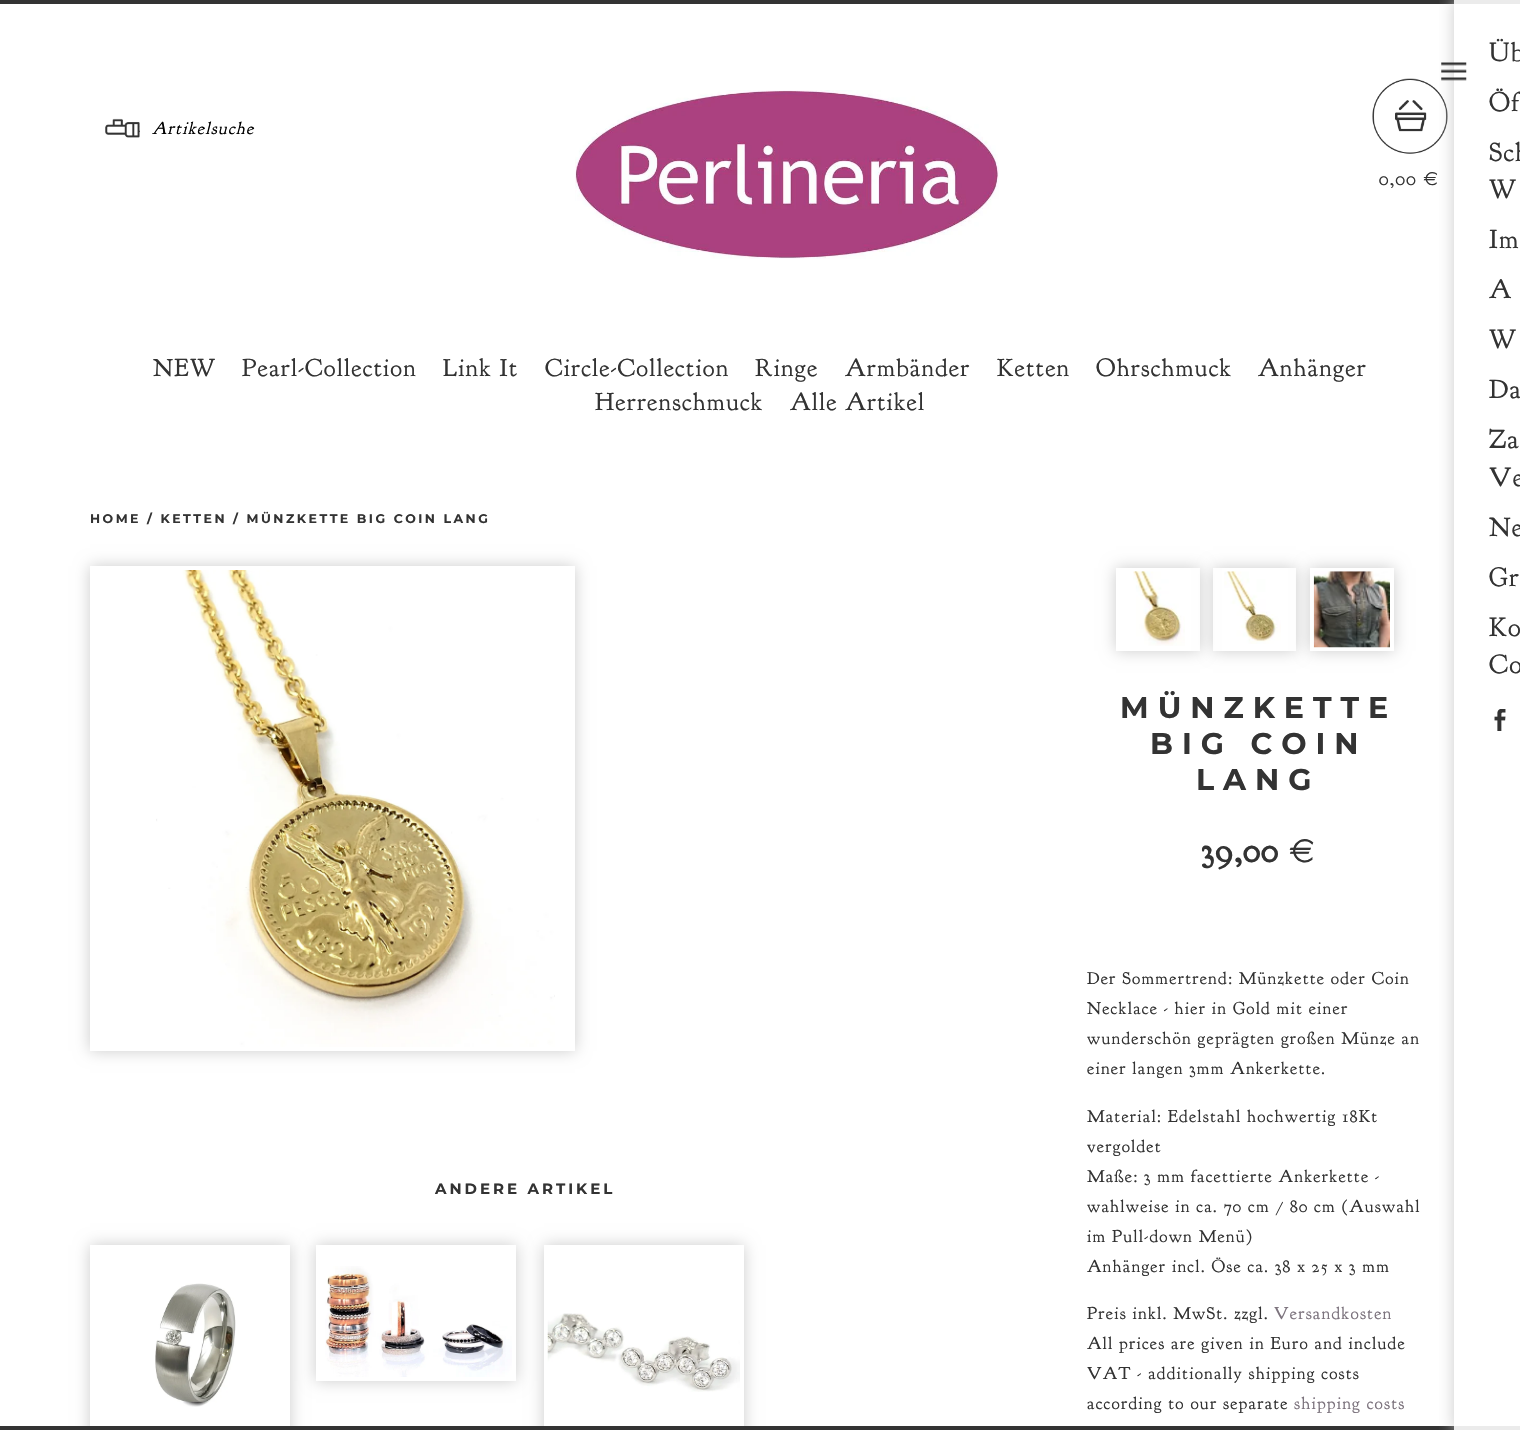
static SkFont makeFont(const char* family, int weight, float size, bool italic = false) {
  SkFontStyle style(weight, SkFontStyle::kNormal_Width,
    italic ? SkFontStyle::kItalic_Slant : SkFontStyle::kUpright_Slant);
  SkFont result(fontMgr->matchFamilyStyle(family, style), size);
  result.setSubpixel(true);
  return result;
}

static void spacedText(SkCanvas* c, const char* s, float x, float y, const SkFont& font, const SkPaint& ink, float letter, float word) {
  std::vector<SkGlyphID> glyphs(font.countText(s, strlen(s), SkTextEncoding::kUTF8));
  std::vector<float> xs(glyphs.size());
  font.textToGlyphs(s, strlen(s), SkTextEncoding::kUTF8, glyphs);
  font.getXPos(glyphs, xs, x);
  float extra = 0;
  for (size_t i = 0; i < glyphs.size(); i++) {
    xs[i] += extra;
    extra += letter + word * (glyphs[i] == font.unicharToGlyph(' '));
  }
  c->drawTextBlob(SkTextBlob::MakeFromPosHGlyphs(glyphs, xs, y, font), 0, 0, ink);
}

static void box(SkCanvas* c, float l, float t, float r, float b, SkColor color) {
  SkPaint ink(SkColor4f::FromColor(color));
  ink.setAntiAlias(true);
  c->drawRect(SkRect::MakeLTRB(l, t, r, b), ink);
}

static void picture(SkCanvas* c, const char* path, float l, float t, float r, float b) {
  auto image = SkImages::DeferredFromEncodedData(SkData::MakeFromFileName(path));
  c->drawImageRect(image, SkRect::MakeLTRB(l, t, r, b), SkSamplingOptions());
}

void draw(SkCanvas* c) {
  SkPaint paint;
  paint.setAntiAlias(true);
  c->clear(0xffffffff);
  box(c, 0, 0, 1454, 4, 0xff333333);
  box(c, 1454, 0, 1520, 4, 0xffebebeb);
  picture(c, "img_01.png", 105, 118, 140, 138);
  SkFont face1 = makeFont("Goudy Bookletter 1911", 400, 17.5f, true);
  paint.setColor(0xff000000);
  spacedText(c, "Artikelsuche", 152, 134, face1, paint, 1.25f, 0);
  picture(c, "img_02.png", 575, 90, 999, 259);
  picture(c, "img_03.png", 1372, 78, 1448, 154);
  SkFont face2 = makeFont("Goudy Bookletter 1911", 400, 20);
  paint.setColor(0xff333333);
  spacedText(c, "0,00 €", 1379, 185, face2, paint, 1.25f, 0);
  c->save();
  c->clipPath(SkPathBuilder(SkPathFillType::kEvenOdd).moveTo(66, 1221).lineTo(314, 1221).lineTo(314, 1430).lineTo(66, 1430).close().moveTo(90, 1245).lineTo(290, 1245).lineTo(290, 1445).lineTo(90, 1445).close().detach(), true);
  paint.setColor(0xffcccccc);
  paint.setMaskFilter(SkMaskFilter::MakeBlur(kNormal_SkBlurStyle, 7.5f));
  c->drawRect(SkRect::MakeLTRB(90, 1245, 290, 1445), paint);
  paint.setMaskFilter(nullptr);
  c->restore();
  c->save();
  c->clipPath(SkPathBuilder(SkPathFillType::kEvenOdd).moveTo(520, 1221).lineTo(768, 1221).lineTo(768, 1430).lineTo(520, 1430).close().moveTo(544, 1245).lineTo(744, 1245).lineTo(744, 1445).lineTo(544, 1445).close().detach(), true);
  paint.setMaskFilter(SkMaskFilter::MakeBlur(kNormal_SkBlurStyle, 7.5f));
  c->drawRect(SkRect::MakeLTRB(544, 1245, 744, 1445), paint);
  paint.setMaskFilter(nullptr);
  c->restore();
  paint.setStyle(SkPaint::kStroke_Style);
  paint.setStrokeWidth(4);
  paint.setColor(0xffffffff);
  c->drawRect(SkRect::MakeLTRB(546, 1247, 742, 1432), paint);
  box(c, 0, 1426, 1454, 1430, 0xff333333);
  box(c, 1454, 1426, 1520, 1430, 0xffebebeb);
  c->save();
  c->clipRect(SkRect::MakeLTRB(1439, 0, 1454, 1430));
  paint.setStyle(SkPaint::kFill_Style);
  paint.setColor(0xffcccccc);
  paint.setMaskFilter(SkMaskFilter::MakeBlur(kNormal_SkBlurStyle, 7.5f));
  c->drawRect(SkRect::MakeLTRB(1454, 0, 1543, 1430), paint);
  paint.setMaskFilter(nullptr);
  c->restore();
  picture(c, "img_04.png", 1441, 62, 1467, 81);
  SkFont face3 = makeFont("Goudy Bookletter 1911", 400, 27);
  paint.setColor(0xff333333);
  spacedText(c, "Üb", 1489, 61, face3, paint, 1.25f, 0);
  spacedText(c, "Öf", 1489, 111, face3, paint, 1.25f, 0);
  spacedText(c, "Sch", 1489, 161, face3, paint, 1.25f, 0);
  spacedText(c, "W", 1489, 198, face3, paint, 1.25f, 0);
  spacedText(c, "Im", 1489, 248, face3, paint, 1.25f, 0);
  spacedText(c, "A", 1489, 298, face3, paint, 1.25f, 0);
  spacedText(c, "W", 1489, 348, face3, paint, 1.25f, 0);
  spacedText(c, "Da", 1489, 398, face3, paint, 1.25f, 0);
  spacedText(c, "Za", 1489, 448, face3, paint, 1.25f, 0);
  spacedText(c, "Ve", 1489, 486, face3, paint, 1.25f, 0);
  spacedText(c, "Ne", 1489, 536, face3, paint, 1.25f, 0);
  spacedText(c, "Gr", 1489, 586, face3, paint, 1.25f, 0);
  spacedText(c, "Ko", 1489, 636, face3, paint, 1.25f, 0);
  spacedText(c, "Co", 1489, 673, face3, paint, 1.25f, 0);
  picture(c, "img_05.png", 1494, 709, 1506, 731);
  SkFont face4 = makeFont("Goudy Bookletter 1911", 400, 25);
  spacedText(c, "NEW", 153, 376, face4, paint, 1.25f, 0);
  spacedText(c, "Pearl-Collection", 242, 376, face4, paint, 1.25f, 0);
  spacedText(c, "Link It", 443, 376, face4, paint, 1.25f, 0);
  spacedText(c, "Circle-Collection", 545, 376, face4, paint, 1.25f, 0);
  spacedText(c, "Ringe", 755, 376, face4, paint, 1.25f, 0);
  spacedText(c, "Armbänder", 845, 376, face4, paint, 1.25f, 0);
  spacedText(c, "Ketten", 997, 376, face4, paint, 1.25f, 0);
  spacedText(c, "Ohrschmuck", 1096, 376, face4, paint, 1.25f, 0);
  spacedText(c, "Anhänger", 1258, 376, face4, paint, 1.25f, 0);
  spacedText(c, "Herrenschmuck", 595, 410, face4, paint, 1.25f, 0);
  spacedText(c, "Alle Artikel", 790, 410, face4, paint, 1.25f, 0);
  SkFont face5 = makeFont("Montserrat", 700, 12.5f);
  spacedText(c, "HOME / KETTEN / MÜNZKETTE BIG COIN LANG", 90, 523, face5, paint, 2.5f, 0);
  c->save();
  c->clipPath(SkPathBuilder(SkPathFillType::kEvenOdd).moveTo(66, 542).lineTo(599, 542).lineTo(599, 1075).lineTo(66, 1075).close().moveTo(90, 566).lineTo(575, 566).lineTo(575, 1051).lineTo(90, 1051).close().detach(), true);
  paint.setColor(0xffcccccc);
  paint.setMaskFilter(SkMaskFilter::MakeBlur(kNormal_SkBlurStyle, 7.5f));
  c->drawRect(SkRect::MakeLTRB(90, 566, 575, 1051), paint);
  paint.setMaskFilter(nullptr);
  c->restore();
  paint.setStyle(SkPaint::kStroke_Style);
  paint.setColor(0xffffffff);
  c->drawRect(SkRect::MakeLTRB(92, 568, 573, 1049), paint);
  picture(c, "img_06.png", 156, 570, 555, 1047);
  SkFont face6 = makeFont("Montserrat", 700, 15);
  paint.setStyle(SkPaint::kFill_Style);
  paint.setColor(0xff333333);
  spacedText(c, "ANDERE ARTIKEL", 435, 1194, face6, paint, 3, 0);
  picture(c, "img_07.png", 155, 1283, 236, 1407);
  c->save();
  c->clipPath(SkPathBuilder(SkPathFillType::kEvenOdd).moveTo(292, 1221).lineTo(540, 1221).lineTo(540, 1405).lineTo(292, 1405).close().moveTo(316, 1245).lineTo(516, 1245).lineTo(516, 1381).lineTo(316, 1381).close().detach(), true);
  paint.setColor(0xffcccccc);
  paint.setMaskFilter(SkMaskFilter::MakeBlur(kNormal_SkBlurStyle, 7.5f));
  c->drawRect(SkRect::MakeLTRB(316, 1245, 516, 1381), paint);
  paint.setMaskFilter(nullptr);
  c->restore();
  paint.setStyle(SkPaint::kStroke_Style);
  paint.setColor(0xffffffff);
  c->drawRect(SkRect::MakeLTRB(318, 1247, 514, 1379), paint);
  picture(c, "img_08.png", 325, 1266, 512, 1377);
  picture(c, "img_09.png", 547, 1313, 740, 1392);
  c->save();
  c->clipPath(SkPathBuilder(SkPathFillType::kEvenOdd).moveTo(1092, 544).lineTo(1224, 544).lineTo(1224, 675).lineTo(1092, 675).close().moveTo(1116, 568).lineTo(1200, 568).lineTo(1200, 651).lineTo(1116, 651).close().detach(), true);
  paint.setStyle(SkPaint::kFill_Style);
  paint.setColor(0xffcccccc);
  paint.setMaskFilter(SkMaskFilter::MakeBlur(kNormal_SkBlurStyle, 7.5f));
  c->drawRect(SkRect::MakeLTRB(1116, 568, 1200, 651), paint);
  paint.setMaskFilter(nullptr);
  c->restore();
  paint.setStyle(SkPaint::kStroke_Style);
  paint.setColor(0xffffffff);
  c->drawRect(SkRect::MakeLTRB(1118, 570, 1198, 649), paint);
  picture(c, "img_10.png", 1133, 571, 1185, 646);
  c->save();
  c->clipPath(SkPathBuilder(SkPathFillType::kEvenOdd).moveTo(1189, 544).lineTo(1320, 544).lineTo(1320, 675).lineTo(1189, 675).close().moveTo(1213, 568).lineTo(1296, 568).lineTo(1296, 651).lineTo(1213, 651).close().detach(), true);
  paint.setStyle(SkPaint::kFill_Style);
  paint.setColor(0xffcccccc);
  paint.setMaskFilter(SkMaskFilter::MakeBlur(kNormal_SkBlurStyle, 7.5f));
  c->drawRect(SkRect::MakeLTRB(1213, 568, 1296, 651), paint);
  paint.setMaskFilter(nullptr);
  c->restore();
  picture(c, "img_11.png", 1224, 571, 1281, 644);
  paint.setMaskFilter(SkMaskFilter::MakeBlur(kNormal_SkBlurStyle, 7.5f));
  c->drawRect(SkRect::MakeLTRB(1310, 568, 1394, 651), paint);
  paint.setMaskFilter(nullptr);
  paint.setStyle(SkPaint::kStroke_Style);
  paint.setColor(0xffffffff);
  c->drawRect(SkRect::MakeLTRB(1312, 570, 1392, 649), paint);
  picture(c, "img_12.png", 1313, 571, 1390, 648);
  SkFont face7 = makeFont("Montserrat", 700, 30);
  paint.setStyle(SkPaint::kFill_Style);
  paint.setColor(0xff333333);
  spacedText(c, "MÜNZKETTE", 1120, 718, face7, paint, 9, 0);
  spacedText(c, "BIG COIN", 1150, 754, face7, paint, 9, 0);
  spacedText(c, "LANG", 1196, 790, face7, paint, 9, 0);
  SkFont face8 = makeFont("Goudy Bookletter 1911", 700, 35);
  spacedText(c, "39,00", 1201, 862, face8, paint, 1.25f, 0);
  SkFont face9 = makeFont("Goudy Bookletter 1911", 400, 35);
  spacedText(c, "€", 1289, 862, face9, paint, 1.25f, 0);
  SkFont face10 = makeFont("Goudy Bookletter 1911", 400, 17.5f);
  spacedText(c, "Der Sommertrend: Münzkette oder Coin", 1087, 984, face10, paint, 1.25f, 0);
  spacedText(c, "Necklace - hier in Gold mit einer", 1087, 1014, face10, paint, 1.25f, 0);
  spacedText(c, "wunderschön geprägten großen Münze an", 1087, 1044, face10, paint, 1.25f, 0);
  spacedText(c, "einer langen 3mm Ankerkette.", 1087, 1074, face10, paint, 1.25f, 0);
  spacedText(c, "Material: Edelstahl hochwertig 18Kt", 1087, 1122, face10, paint, 1.25f, 0);
  spacedText(c, "vergoldet", 1087, 1152, face10, paint, 1.25f, 0);
  spacedText(c, "Maße: 3 mm facettierte Ankerkette -", 1087, 1182, face10, paint, 1.25f, 0);
  spacedText(c, "wahlweise in ca. 70 cm / 80 cm (Auswahl", 1087, 1212, face10, paint, 1.25f, 0);
  spacedText(c, "im Pull-down Menü)", 1087, 1242, face10, paint, 1.25f, 0);
  spacedText(c, "Anhänger incl. Öse ca. 38 x 25 x 3 mm", 1087, 1272, face10, paint, 1.25f, 0);
  spacedText(c, "Preis inkl. MwSt. zzgl.", 1087, 1319, face10, paint, 1.25f, 0);
  paint.setColor(0xff7c737d);
  spacedText(c, "Versandkosten", 1274, 1319, face10, paint, 1.25f, 0);
  paint.setColor(0xff333333);
  spacedText(c, "All prices are given in Euro and include", 1087, 1349, face10, paint, 1.25f, 0);
  spacedText(c, "VAT - additionally shipping costs", 1087, 1379, face10, paint, 1.25f, 0);
  spacedText(c, "according to our separate", 1087, 1409, face10, paint, 1.25f, 0);
  paint.setColor(0xff7c737d);
  spacedText(c, "shipping costs", 1294, 1409, face10, paint, 1.25f, 0);
}
